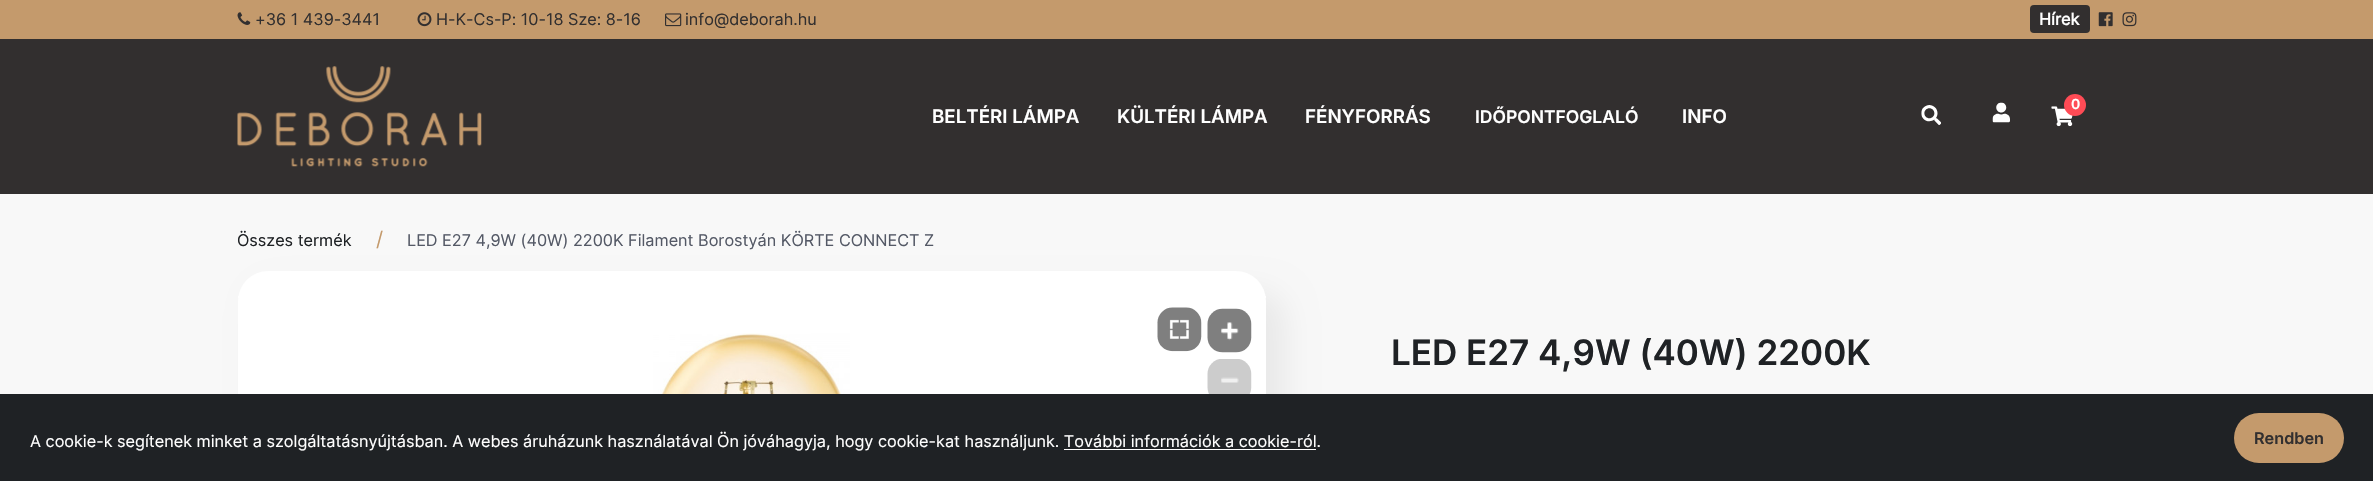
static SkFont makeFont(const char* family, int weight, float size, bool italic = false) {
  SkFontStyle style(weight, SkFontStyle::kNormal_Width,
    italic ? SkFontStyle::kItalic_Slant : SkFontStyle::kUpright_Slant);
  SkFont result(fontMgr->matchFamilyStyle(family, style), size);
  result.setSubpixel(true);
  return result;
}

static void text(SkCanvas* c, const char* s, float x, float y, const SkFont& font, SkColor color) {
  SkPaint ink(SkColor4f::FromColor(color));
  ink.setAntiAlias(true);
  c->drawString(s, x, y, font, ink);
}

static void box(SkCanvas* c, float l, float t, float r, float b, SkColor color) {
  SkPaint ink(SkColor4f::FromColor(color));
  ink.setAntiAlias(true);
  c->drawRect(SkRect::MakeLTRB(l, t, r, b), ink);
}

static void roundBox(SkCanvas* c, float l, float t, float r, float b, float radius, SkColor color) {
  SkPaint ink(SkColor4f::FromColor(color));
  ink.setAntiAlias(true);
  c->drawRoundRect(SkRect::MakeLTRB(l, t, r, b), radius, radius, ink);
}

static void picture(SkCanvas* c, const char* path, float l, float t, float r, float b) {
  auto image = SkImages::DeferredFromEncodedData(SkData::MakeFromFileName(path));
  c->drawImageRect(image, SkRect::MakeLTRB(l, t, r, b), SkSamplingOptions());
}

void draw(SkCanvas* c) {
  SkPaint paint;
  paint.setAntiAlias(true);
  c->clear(0xfff8f8f8);
  box(c, 0, 0, 2373, 39, 0xffc49a6c);
  picture(c, "img_01.png", 237, 12, 251, 25);
  SkFont face1 = makeFont("Inter", 400, 16.25f);
  text(c, "+36 1 439-3441", 255, 25, face1, 0xff322f2f);
  picture(c, "img_02.png", 417, 12, 432, 27);
  text(c, "H-K-Cs-P: 10-18 Sze: 8-16", 436, 25, face1, 0xff322f2f);
  picture(c, "img_03.png", 665, 13, 682, 27);
  text(c, "info@deborah.hu", 685, 25, face1, 0xff322f2f);
  roundBox(c, 2030, 5, 2090, 33, 4, 0xff322f2f);
  SkFont face2 = makeFont("Inter", 700, 16.25f);
  text(c, "Hírek", 2039, 25, face2, 0xffffffff);
  picture(c, "img_04.png", 2098, 12, 2113, 27);
  picture(c, "img_05.png", 2122, 12, 2137, 27);
  box(c, 0, 39, 2373, 194, 0xff322f2f);
  picture(c, "img_06.png", 237, 66, 482, 167);
  SkFont face3 = makeFont("Inter", 600, 18.75f);
  text(c, "BELTÉRI LÁMPA", 932, 123, face3, 0xffffffff);
  text(c, "KÜLTÉRI LÁMPA", 1117, 123, face3, 0xffffffff);
  text(c, "FÉNYFORRÁS", 1305, 123, face3, 0xffffffff);
  SkFont face4 = makeFont("Inter", 600, 17.5f);
  text(c, "IDŐPONTFOGLALÓ", 1475, 123, face4, 0xffffffff);
  text(c, "INFO", 1682, 123, face3, 0xffffffff);
  picture(c, "img_07.png", 1921, 105, 1941, 125);
  picture(c, "img_08.png", 1992, 102, 2010, 123);
  picture(c, "img_09.png", 2051, 106, 2073, 127);
  paint.setColor(0xffff4b55);
  c->drawCircle(2075, 105, 11, paint);
  SkFont face5 = makeFont("Inter", 600, 14);
  text(c, "0", 2071, 109, face5, 0xffffffff);
  text(c, "Összes termék", 237, 246, face1, 0xff1f2225);
  SkFont face6 = makeFont("Inter", 400, 20);
  text(c, "/", 376, 246, face6, 0xffc49a6c);
  text(c, "LED E27 4,9W (40W) 2200K Filament Borostyán KÖRTE CONNECT Z", 407, 246, face1, 0xff545966);
  paint.setColor(0x0f000000);
  paint.setMaskFilter(SkMaskFilter::MakeBlur(kNormal_SkBlurStyle, 15));
  c->drawRoundRect(SkRect::MakeLTRB(258, 291, 1286, 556), 30, 30, paint);
  paint.setMaskFilter(nullptr);
  roundBox(c, 238, 271, 1266, 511, 30, 0xffffffff);
  box(c, 238, 296, 1266, 298, 0xffffffff);
  picture(c, "img_10.png", 653, 333, 850, 394);
  picture(c, "img_11.png", 1157, 307, 1202, 352);
  picture(c, "img_12.png", 1207, 308, 1252, 353);
  picture(c, "img_13.png", 1207, 359, 1252, 394);
  SkFont face7 = makeFont("Inter", 600, 35);
  text(c, "LED E27 4,9W (40W) 2200K", 1391, 365, face7, 0xff1f2225);
  box(c, 0, 394, 2373, 481, 0xff1f2225);
  text(c, "A cookie-k segítenek minket a szolgáltatásnyújtásban. A webes áruházunk használatával Ön jóváhagyja, hogy cookie-kat használjunk. További információk a cookie-ról.", 30, 447, face1, 0xffffffff);
  box(c, 1064, 449, 1316, 450, 0xffffffff);
  roundBox(c, 2234, 413, 2344, 463, 25, 0xffc49a6c);
  SkFont face8 = makeFont("Inter", 600, 16.25f);
  text(c, "Rendben", 2254, 444, face8, 0xff322f2f);
}
